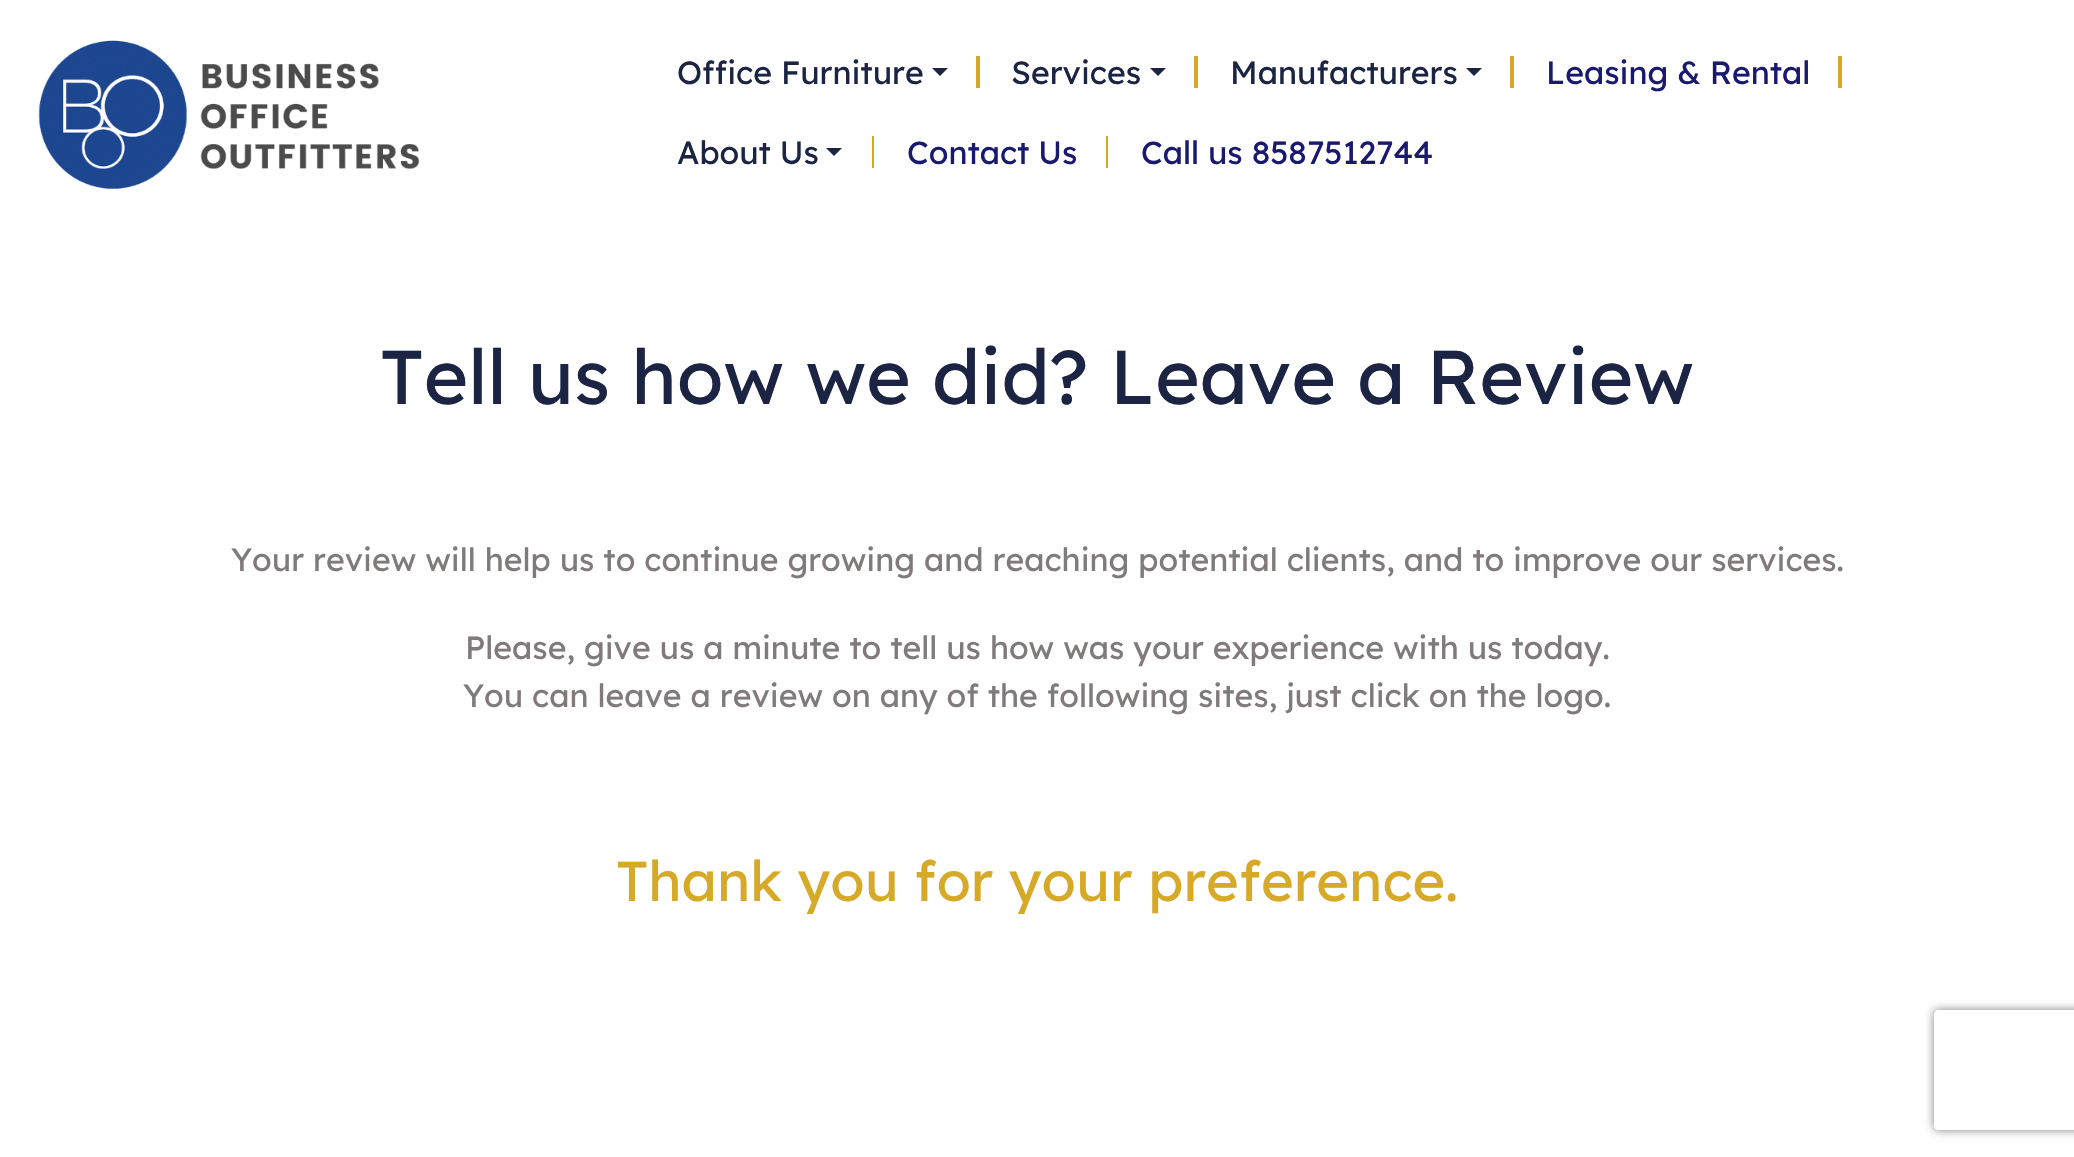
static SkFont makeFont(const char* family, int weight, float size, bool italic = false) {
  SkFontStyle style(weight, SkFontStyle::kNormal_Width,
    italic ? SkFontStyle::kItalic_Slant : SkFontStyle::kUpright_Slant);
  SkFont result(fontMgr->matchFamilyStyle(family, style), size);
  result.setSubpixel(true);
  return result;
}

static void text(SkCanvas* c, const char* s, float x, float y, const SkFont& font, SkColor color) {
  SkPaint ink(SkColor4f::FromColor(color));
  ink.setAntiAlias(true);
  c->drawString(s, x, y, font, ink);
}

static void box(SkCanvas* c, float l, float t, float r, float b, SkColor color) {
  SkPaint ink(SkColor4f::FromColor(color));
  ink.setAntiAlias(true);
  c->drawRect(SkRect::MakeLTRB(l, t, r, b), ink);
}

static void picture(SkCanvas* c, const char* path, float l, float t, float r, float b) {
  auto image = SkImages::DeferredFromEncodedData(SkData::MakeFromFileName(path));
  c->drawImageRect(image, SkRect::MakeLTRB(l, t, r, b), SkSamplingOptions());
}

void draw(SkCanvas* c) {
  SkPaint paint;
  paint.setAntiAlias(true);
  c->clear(0xffffffff);
  picture(c, "img_01.png", 38, 40, 420, 190);
  SkFont face1 = makeFont("Lexend Deca", 400, 32);
  text(c, "Office Furniture", 677, 84, face1, 0xff1c2444);
  paint.setColor(0xff1c2444);
  c->drawPath(SkPathBuilder().moveTo(932, 68).lineTo(948, 68).lineTo(940, 76).close().detach(), paint);
  box(c, 976, 56, 980, 88, 0xffd6aa28);
  text(c, "Services", 1011, 84, face1, 0xff1c2444);
  c->drawPath(SkPathBuilder().moveTo(1150, 68).lineTo(1166, 68).lineTo(1158, 76).close().detach(), paint);
  box(c, 1194, 56, 1198, 88, 0xffd6aa28);
  text(c, "Manufacturers", 1230, 84, face1, 0xff1c2444);
  c->drawPath(SkPathBuilder().moveTo(1466, 68).lineTo(1482, 68).lineTo(1474, 76).close().detach(), paint);
  box(c, 1510, 56, 1514, 88, 0xffd6aa28);
  text(c, "Leasing & Rental", 1546, 84, face1, 0xff191970);
  box(c, 1838, 56, 1842, 88, 0xffd6aa28);
  text(c, "About Us", 677, 164, face1, 0xff1c2444);
  c->drawPath(SkPathBuilder().moveTo(826, 148).lineTo(842, 148).lineTo(834, 156).close().detach(), paint);
  box(c, 872, 136, 874, 168, 0xffd6aa28);
  text(c, "Contact Us", 907, 164, face1, 0xff191970);
  box(c, 1106, 136, 1108, 168, 0xffd6aa28);
  text(c, "Call us 8587512744", 1141, 164, face1, 0xff191970);
  SkFont face2 = makeFont("Lexend Deca", 400, 76);
  text(c, "Tell us how we did? Leave a Review", 380, 404, face2, 0xff1c2444);
  text(c, "Your review will help us to continue growing and reaching potential clients, and to improve our services.", 231, 571, face1, 0xff807a7b);
  text(c, "Please, give us a minute to tell us how was your experience with us today.", 465, 659, face1, 0xff807a7b);
  text(c, "You can leave a review on any of the following sites, just click on the logo.", 463, 707, face1, 0xff807a7b);
  SkFont face3 = makeFont("Lexend Deca", 400, 56);
  text(c, "Thank you for your preference.", 616, 901, face3, 0xffd6aa28);
  c->save();
  c->clipPath(SkPathBuilder(SkPathFillType::kEvenOdd).moveTo(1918, 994).lineTo(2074, 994).lineTo(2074, 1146).lineTo(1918, 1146).close().moveTo(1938, 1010).lineTo(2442, 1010).cubicTo(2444, 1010, 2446, 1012, 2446, 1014).lineTo(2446, 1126).cubicTo(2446, 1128, 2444, 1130, 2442, 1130).lineTo(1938, 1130).cubicTo(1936, 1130, 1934, 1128, 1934, 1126).lineTo(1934, 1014).cubicTo(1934, 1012, 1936, 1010, 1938, 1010).close().detach(), true);
  paint.setColor(0xff808080);
  paint.setMaskFilter(SkMaskFilter::MakeBlur(kNormal_SkBlurStyle, 5));
  c->drawRoundRect(SkRect::MakeLTRB(1934, 1010, 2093, 1130), 4, 4, paint);
  paint.setMaskFilter(nullptr);
  c->restore();
}
